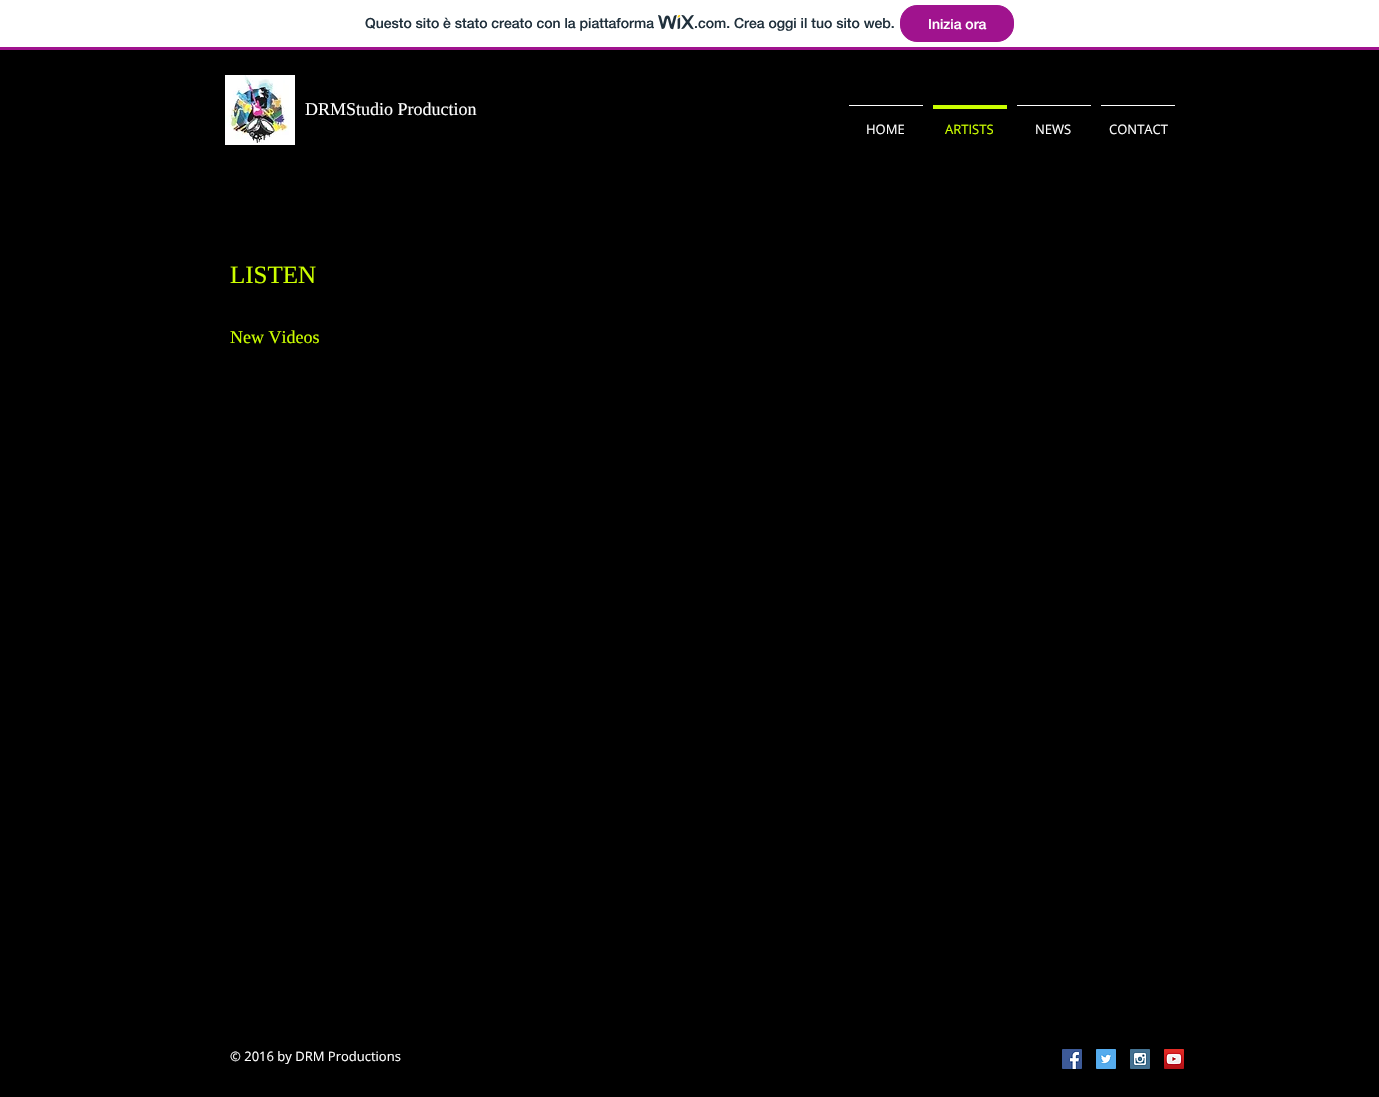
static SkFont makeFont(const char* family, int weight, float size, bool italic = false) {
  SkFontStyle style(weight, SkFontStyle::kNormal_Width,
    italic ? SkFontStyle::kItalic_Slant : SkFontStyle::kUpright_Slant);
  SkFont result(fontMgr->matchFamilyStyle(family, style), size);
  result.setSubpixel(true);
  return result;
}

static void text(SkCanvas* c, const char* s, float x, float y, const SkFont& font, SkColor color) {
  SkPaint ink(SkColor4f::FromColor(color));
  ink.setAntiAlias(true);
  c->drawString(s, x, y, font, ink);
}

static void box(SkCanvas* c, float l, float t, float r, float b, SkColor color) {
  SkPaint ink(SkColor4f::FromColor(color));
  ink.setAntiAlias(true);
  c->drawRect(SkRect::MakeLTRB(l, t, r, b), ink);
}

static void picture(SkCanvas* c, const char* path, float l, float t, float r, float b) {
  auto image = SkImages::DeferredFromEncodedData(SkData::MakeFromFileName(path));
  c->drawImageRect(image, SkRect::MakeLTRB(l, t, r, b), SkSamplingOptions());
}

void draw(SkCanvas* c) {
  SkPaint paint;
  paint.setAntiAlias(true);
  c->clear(0xffffffff);
  box(c, 0, 47, 1379, 50, 0xffa0138e);
  SkFont face1 = makeFont("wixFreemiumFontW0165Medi", 500, 14);
  text(c, "Questo sito è stato creato con la piattaforma", 365, 28, face1, 0xff20303c);
  picture(c, "img_01.png", 658, 15, 694, 30);
  text(c, ".com. Crea oggi il tuo sito web.", 694, 28, face1, 0xff20303c);
  paint.setColor(0xffa0138e);
  c->drawRoundRect(SkRect::MakeLTRB(900.5f, 5.5f, 1013.5f, 41.5f), 16.5f, 16.5f, paint);
  paint.setStyle(SkPaint::kStroke_Style);
  paint.setStrokeWidth(1);
  c->drawRoundRect(SkRect::MakeLTRB(900.5f, 5.5f, 1013.5f, 41.5f), 16.5f, 16.5f, paint);
  text(c, "Inizia ora", 928, 29, face1, 0xffffffff);
  box(c, 0, 50, 1379, 1097, 0xff000000);
  picture(c, "img_02.png", 225, 75, 295, 145);
  SkFont face2 = makeFont("Liberation Serif", 400, 18);
  text(c, "DRMStudio Production", 305, 115, face2, 0xffffffff);
  box(c, 849, 105, 923, 106, 0xffffffff);
  SkFont face3 = makeFont("Open Sans", 400, 13);
  text(c, "HOME", 866, 134, face3, 0xffffffff);
  box(c, 933, 105, 1007, 109, 0xffccff00);
  text(c, "ARTISTS", 945, 134, face3, 0xffccff00);
  box(c, 1017, 105, 1091, 106, 0xffffffff);
  text(c, "NEWS", 1035, 134, face3, 0xffffffff);
  box(c, 1101, 105, 1175, 106, 0xffffffff);
  text(c, "CONTACT", 1109, 134, face3, 0xffffffff);
  SkFont face4 = makeFont("Liberation Serif", 400, 25);
  text(c, "LISTEN", 230, 283, face4, 0xffccff00);
  text(c, "New Videos", 230, 343, face2, 0xffccff00);
  text(c, "© 2016 by DRM Productions", 230, 1061, face3, 0xffffffff);
  picture(c, "img_03.png", 1062, 1049, 1082, 1069);
  picture(c, "img_04.png", 1096, 1049, 1116, 1069);
  picture(c, "img_05.png", 1130, 1049, 1150, 1069);
  picture(c, "img_06.png", 1164, 1049, 1184, 1069);
}
